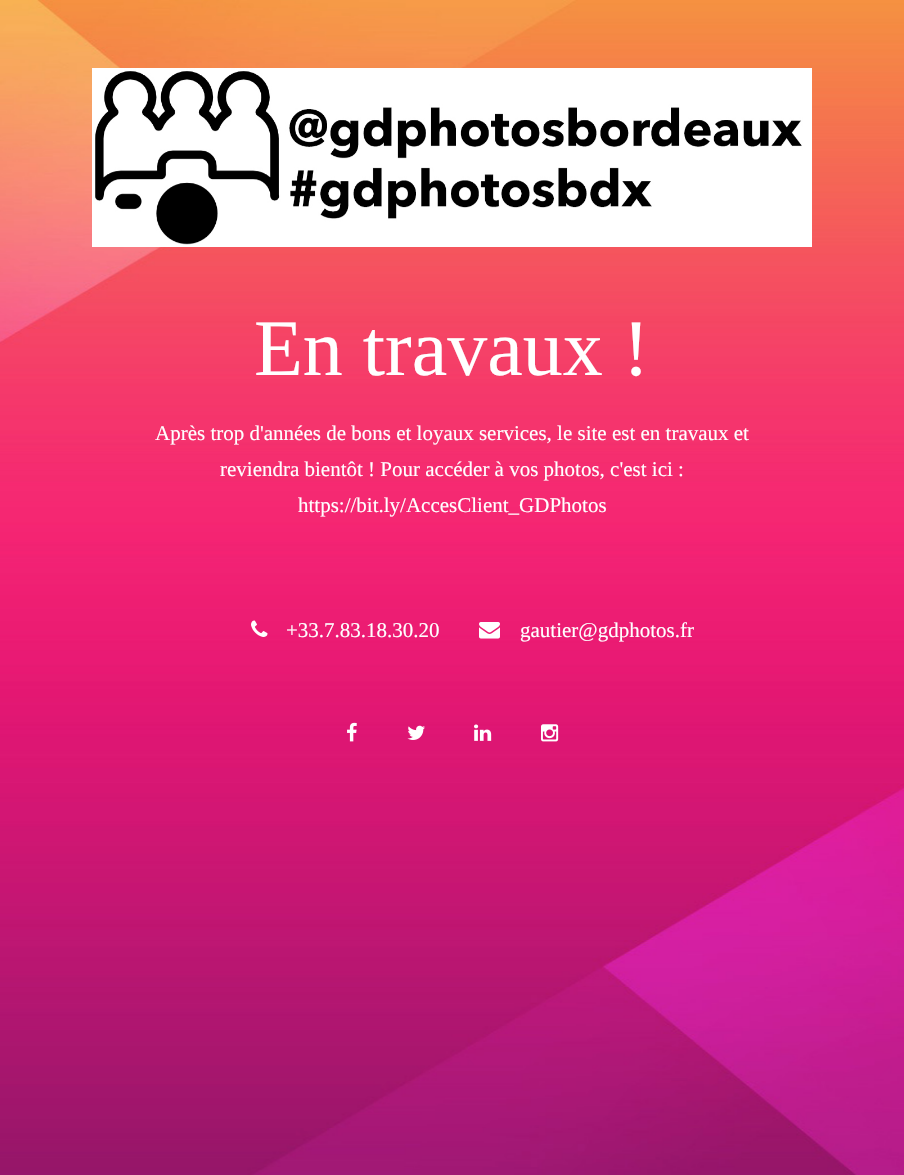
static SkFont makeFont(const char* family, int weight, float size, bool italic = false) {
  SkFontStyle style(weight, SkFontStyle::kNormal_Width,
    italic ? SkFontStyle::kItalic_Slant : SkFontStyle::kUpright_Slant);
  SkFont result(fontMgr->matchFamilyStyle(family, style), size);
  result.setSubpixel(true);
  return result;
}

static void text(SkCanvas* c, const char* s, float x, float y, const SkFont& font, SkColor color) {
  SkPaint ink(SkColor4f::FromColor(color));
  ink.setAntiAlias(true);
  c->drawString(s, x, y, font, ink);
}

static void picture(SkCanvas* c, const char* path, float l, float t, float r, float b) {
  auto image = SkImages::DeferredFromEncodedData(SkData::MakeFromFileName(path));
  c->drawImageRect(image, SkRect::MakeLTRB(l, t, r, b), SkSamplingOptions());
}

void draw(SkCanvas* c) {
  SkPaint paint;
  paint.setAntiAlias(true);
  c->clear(0xffffffff);
  picture(c, "img_01.png", 0, 0, 904, 1175);
  picture(c, "img_02.png", 92, 68, 812, 247);
  SkFont face1 = makeFont("Liberation Serif", 400, 80);
  text(c, "En travaux !", 254, 375, face1, 0xffffffff);
  SkFont face2 = makeFont("Liberation Serif", 400, 21);
  text(c, "Après trop d'années de bons et loyaux services, le site est en travaux et", 155, 440, face2, 0xffffffff);
  text(c, "reviendra bientôt ! Pour accéder à vos photos, c'est ici :", 220, 476, face2, 0xffffffff);
  text(c, "https://bit.ly/AccesClient_GDPhotos", 298, 512, face2, 0xffffffff);
  picture(c, "img_03.png", 251, 620, 268, 637);
  text(c, "+33.7.83.18.30.20", 286, 637, face2, 0xffffffff);
  picture(c, "img_04.png", 479, 622, 500, 639);
  text(c, "gautier@gdphotos.fr", 520, 637, face2, 0xffffffff);
  picture(c, "img_05.png", 347, 722, 357, 742);
  picture(c, "img_06.png", 407, 725, 425, 740);
  picture(c, "img_07.png", 474, 724, 492, 741);
  picture(c, "img_08.png", 541, 724, 559, 742);
}
